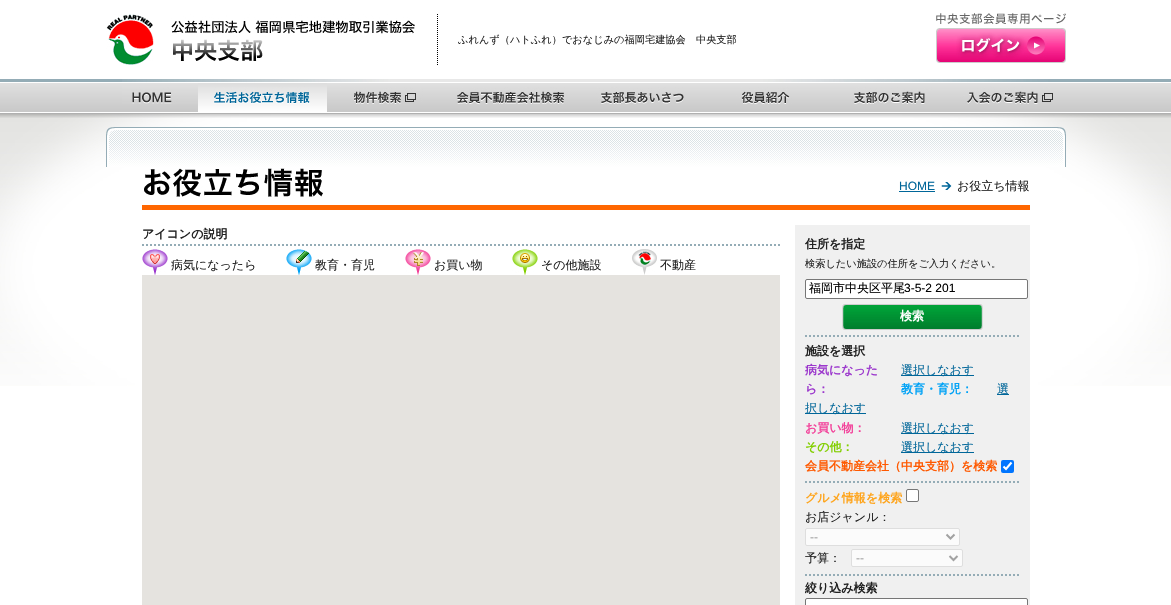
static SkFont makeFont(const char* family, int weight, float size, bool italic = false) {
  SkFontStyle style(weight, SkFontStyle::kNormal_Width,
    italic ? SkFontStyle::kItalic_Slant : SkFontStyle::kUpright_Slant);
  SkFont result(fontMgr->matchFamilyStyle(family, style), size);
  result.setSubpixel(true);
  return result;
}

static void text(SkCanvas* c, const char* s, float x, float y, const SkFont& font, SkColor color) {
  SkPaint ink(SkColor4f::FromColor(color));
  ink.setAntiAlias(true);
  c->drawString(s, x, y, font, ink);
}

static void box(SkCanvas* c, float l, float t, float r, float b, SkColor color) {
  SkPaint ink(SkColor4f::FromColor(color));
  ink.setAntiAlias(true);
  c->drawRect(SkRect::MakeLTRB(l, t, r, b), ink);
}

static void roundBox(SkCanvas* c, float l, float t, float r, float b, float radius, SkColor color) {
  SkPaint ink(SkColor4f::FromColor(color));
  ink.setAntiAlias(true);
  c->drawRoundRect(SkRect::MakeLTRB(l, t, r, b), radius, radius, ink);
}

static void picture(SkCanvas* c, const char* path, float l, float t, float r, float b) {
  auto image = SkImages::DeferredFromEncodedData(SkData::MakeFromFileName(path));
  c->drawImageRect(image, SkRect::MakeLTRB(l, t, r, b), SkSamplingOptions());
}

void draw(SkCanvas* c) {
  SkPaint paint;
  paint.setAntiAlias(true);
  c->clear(0xffffffff);
  picture(c, "img_01.png", 0, 79, 1171, 114);
  paint.setStyle(SkPaint::kStroke_Style);
  paint.setStrokeWidth(1);
  paint.setColor(0xff000000);
  paint.setPathEffect(SkDashPathEffect::Make({{1, 1}}, 0));
  c->drawPath(SkPathBuilder().moveTo(437.5f, 14).lineTo(437.5f, 65).detach(), paint);
  paint.setPathEffect(nullptr);
  picture(c, "img_02.png", 106, 14, 415, 65);
  SkFont face1 = makeFont("WenQuanYi Zen Hei", 500, 10.2f);
  text(c, "ふれんず（ハトふれ）でおなじみの福岡宅建協会　中央支部", 458, 43, face1, 0xff222222);
  picture(c, "img_03.png", 936, 13, 1066, 24);
  picture(c, "img_04.png", 936, 28, 1066, 63);
  picture(c, "img_05.png", 0, 114, 1171, 386);
  picture(c, "img_06.png", 122, 79, 198, 104);
  picture(c, "img_07.png", 198, 79, 327, 112);
  picture(c, "img_08.png", 327, 79, 441, 104);
  picture(c, "img_09.png", 441, 79, 580, 105);
  picture(c, "img_10.png", 580, 79, 704, 104);
  picture(c, "img_11.png", 704, 79, 828, 105);
  picture(c, "img_12.png", 828, 79, 952, 104);
  picture(c, "img_13.png", 952, 79, 1053, 104);
  picture(c, "img_14.png", 106, 127, 1066, 167);
  box(c, 127, 385, 128, 386, 0xffffffff);
  box(c, 142, 205, 1030, 210, 0xffff6600);
  picture(c, "img_15.png", 144, 168, 323, 197);
  SkFont face2 = makeFont("Liberation Sans", 400, 12);
  text(c, "HOME", 899, 190, face2, 0xff006699);
  box(c, 899, 191, 935, 192, 0xff006699);
  picture(c, "img_16.png", 941, 182, 952, 190);
  SkFont face3 = makeFont("WenQuanYi Zen Hei", 500, 12);
  text(c, "お役立ち情報", 957, 190, face3, 0xff222222);
  paint.setStrokeWidth(2);
  paint.setColor(0xff94acb6);
  paint.setPathEffect(SkDashPathEffect::Make({{2, 2}}, 0));
  c->drawPath(SkPathBuilder().moveTo(142, 245).lineTo(780, 245).detach(), paint);
  paint.setPathEffect(nullptr);
  SkFont face4 = makeFont("WenQuanYi Zen Hei", 700, 12);
  text(c, "アイコンの説明", 142, 238, face4, 0xff222222);
  picture(c, "img_17.png", 142, 249, 168, 275);
  text(c, "病気になったら", 171, 269, face3, 0xff222222);
  picture(c, "img_18.png", 286, 249, 312, 275);
  text(c, "教育・育児", 315, 269, face3, 0xff222222);
  picture(c, "img_19.png", 405, 249, 431, 275);
  text(c, "お買い物", 434, 269, face3, 0xff222222);
  picture(c, "img_20.png", 512, 249, 538, 275);
  text(c, "その他施設", 541, 269, face3, 0xff222222);
  picture(c, "img_21.png", 632, 249, 657, 275);
  text(c, "不動産", 660, 269, face3, 0xff222222);
  box(c, 795, 225, 1030, 605, 0xfff0f0f0);
  text(c, "住所を指定", 805, 248, face4, 0xff222222);
  text(c, "検索したい施設の住所をご入力ください。", 805, 267, face1, 0xff222222);
  paint.setStyle(SkPaint::kFill_Style);
  paint.setColor(0xffffffff);
  c->drawRoundRect(SkRect::MakeLTRB(805.5f, 279.5f, 1027.5f, 298.5f), 1.5f, 1.5f, paint);
  paint.setStyle(SkPaint::kStroke_Style);
  paint.setStrokeWidth(1);
  paint.setColor(0xff767676);
  c->drawRoundRect(SkRect::MakeLTRB(805.5f, 279.5f, 1027.5f, 298.5f), 1.5f, 1.5f, paint);
  text(c, "福岡市中央区平尾", 809, 292, face3, 0xff000000);
  text(c, "3-5-2 201", 904, 292, face2, 0xff000000);
  paint.setStrokeWidth(2);
  paint.setColor(0xff94acb6);
  paint.setPathEffect(SkDashPathEffect::Make({{2, 2}}, 0));
  c->drawPath(SkPathBuilder().moveTo(805, 336).lineTo(1020, 336).detach(), paint);
  paint.setPathEffect(nullptr);
  picture(c, "img_22.png", 842, 304, 983, 330);
  text(c, "検索", 900, 320, face4, 0xffffffff);
  paint.setPathEffect(SkDashPathEffect::Make({{2, 2}}, 0));
  c->drawPath(SkPathBuilder().moveTo(805, 482).lineTo(1020, 482).detach(), paint);
  paint.setPathEffect(nullptr);
  text(c, "施設を選択", 805, 355, face4, 0xff222222);
  text(c, "病気になった", 805, 374, face4, 0xff9c38cd);
  text(c, "ら：", 805, 393, face4, 0xff9c38cd);
  box(c, 901, 375, 974, 376, 0xff006699);
  text(c, "選択しなおす", 901, 374, face3, 0xff006699);
  text(c, "教育・育児：", 901, 393, face4, 0xff00a2f6);
  text(c, "選", 997, 393, face3, 0xff006699);
  box(c, 997, 394, 1009, 395, 0xff006699);
  box(c, 805, 413, 866, 414, 0xff006699);
  text(c, "択しなおす", 805, 412, face3, 0xff006699);
  text(c, "お買い物：", 805, 432, face4, 0xfff3419a);
  box(c, 901, 433, 974, 434, 0xff006699);
  text(c, "選択しなおす", 901, 432, face3, 0xff006699);
  text(c, "その他：", 805, 451, face4, 0xff82cf00);
  box(c, 901, 452, 974, 453, 0xff006699);
  text(c, "選択しなおす", 901, 451, face3, 0xff006699);
  text(c, "会員不動産会社（中央支部）を検索", 805, 470, face4, 0xffff5900);
  roundBox(c, 1001, 460, 1014, 473, 2, 0xff0075ff);
  paint.setStrokeWidth(2.1f);
  paint.setColor(0xffffffff);
  c->drawPath(SkPathBuilder().moveTo(1003.5f, 466.5f).lineTo(1006, 469).lineTo(1011.5f, 462.5f).detach(), paint);
  paint.setStrokeWidth(2);
  paint.setColor(0xff94acb6);
  paint.setPathEffect(SkDashPathEffect::Make({{2, 2}}, 0));
  c->drawPath(SkPathBuilder().moveTo(805, 575).lineTo(1020, 575).detach(), paint);
  paint.setPathEffect(nullptr);
  text(c, "グルメ情報を検索", 805, 502, face4, 0xffffa41a);
  paint.setStyle(SkPaint::kFill_Style);
  paint.setColor(0xffffffff);
  c->drawRoundRect(SkRect::MakeLTRB(906.5f, 489.5f, 918.5f, 501.5f), 1.5f, 1.5f, paint);
  paint.setStyle(SkPaint::kStroke_Style);
  paint.setStrokeWidth(1);
  paint.setColor(0xff767676);
  c->drawRoundRect(SkRect::MakeLTRB(906.5f, 489.5f, 918.5f, 501.5f), 1.5f, 1.5f, paint);
  text(c, "お店ジャンル：", 805, 521, face3, 0xff222222);
  paint.setStyle(SkPaint::kFill_Style);
  paint.setColor(0xfffbfbfb);
  c->drawRoundRect(SkRect::MakeLTRB(805.5f, 528.5f, 959.5f, 545.5f), 1.5f, 1.5f, paint);
  paint.setStyle(SkPaint::kStroke_Style);
  paint.setColor(0xffdedede);
  c->drawRoundRect(SkRect::MakeLTRB(805.5f, 528.5f, 959.5f, 545.5f), 1.5f, 1.5f, paint);
  paint.setStrokeWidth(2);
  paint.setColor(0xffa2a2a2);
  c->drawPath(SkPathBuilder().moveTo(946.5f, 534.5f).lineTo(950.5f, 538.5f).lineTo(954.5f, 534.5f).detach(), paint);
  text(c, "--", 810, 541, face2, 0xffa2a2a2);
  text(c, "予算：", 805, 562, face3, 0xff222222);
  paint.setStyle(SkPaint::kFill_Style);
  paint.setColor(0xfffbfbfb);
  c->drawRoundRect(SkRect::MakeLTRB(851.5f, 549.5f, 962.5f, 566.5f), 1.5f, 1.5f, paint);
  paint.setStyle(SkPaint::kStroke_Style);
  paint.setStrokeWidth(1);
  paint.setColor(0xffdedede);
  c->drawRoundRect(SkRect::MakeLTRB(851.5f, 549.5f, 962.5f, 566.5f), 1.5f, 1.5f, paint);
  paint.setStrokeWidth(2);
  paint.setColor(0xffa2a2a2);
  c->drawPath(SkPathBuilder().moveTo(949.5f, 556).lineTo(953.5f, 560).lineTo(957.5f, 556).detach(), paint);
  text(c, "--", 856, 562, face2, 0xffa2a2a2);
  text(c, "絞り込み検索", 805, 592, face4, 0xff222222);
  paint.setStyle(SkPaint::kFill_Style);
  paint.setColor(0xffffffff);
  c->drawRoundRect(SkRect::MakeLTRB(805.5f, 598.5f, 1027.5f, 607.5f), 1.5f, 1.5f, paint);
  paint.setStyle(SkPaint::kStroke_Style);
  paint.setStrokeWidth(1);
  paint.setColor(0xff767676);
  c->drawRoundRect(SkRect::MakeLTRB(805.5f, 598.5f, 1027.5f, 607.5f), 1.5f, 1.5f, paint);
  box(c, 142, 275, 780, 605, 0xffe5e3df);
}
